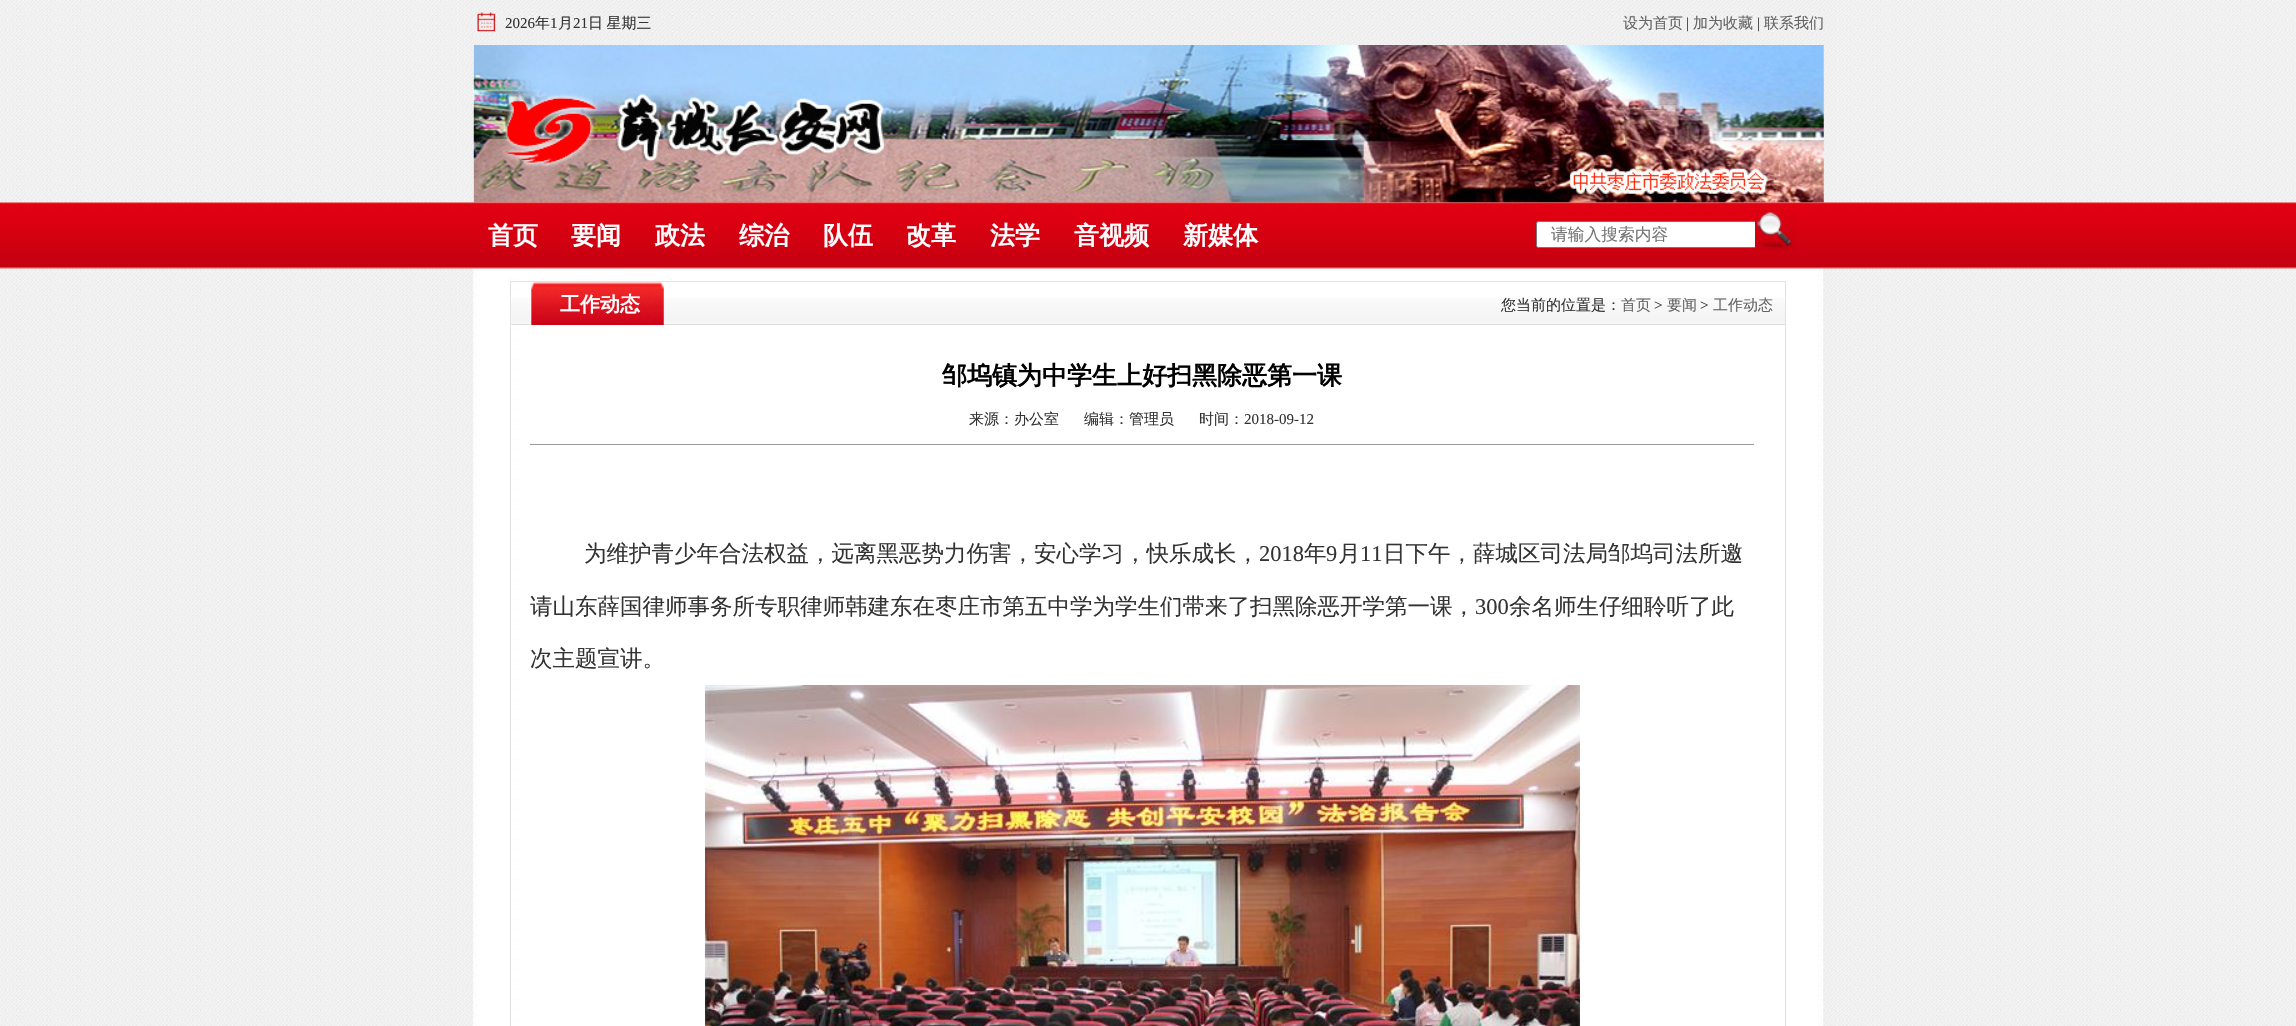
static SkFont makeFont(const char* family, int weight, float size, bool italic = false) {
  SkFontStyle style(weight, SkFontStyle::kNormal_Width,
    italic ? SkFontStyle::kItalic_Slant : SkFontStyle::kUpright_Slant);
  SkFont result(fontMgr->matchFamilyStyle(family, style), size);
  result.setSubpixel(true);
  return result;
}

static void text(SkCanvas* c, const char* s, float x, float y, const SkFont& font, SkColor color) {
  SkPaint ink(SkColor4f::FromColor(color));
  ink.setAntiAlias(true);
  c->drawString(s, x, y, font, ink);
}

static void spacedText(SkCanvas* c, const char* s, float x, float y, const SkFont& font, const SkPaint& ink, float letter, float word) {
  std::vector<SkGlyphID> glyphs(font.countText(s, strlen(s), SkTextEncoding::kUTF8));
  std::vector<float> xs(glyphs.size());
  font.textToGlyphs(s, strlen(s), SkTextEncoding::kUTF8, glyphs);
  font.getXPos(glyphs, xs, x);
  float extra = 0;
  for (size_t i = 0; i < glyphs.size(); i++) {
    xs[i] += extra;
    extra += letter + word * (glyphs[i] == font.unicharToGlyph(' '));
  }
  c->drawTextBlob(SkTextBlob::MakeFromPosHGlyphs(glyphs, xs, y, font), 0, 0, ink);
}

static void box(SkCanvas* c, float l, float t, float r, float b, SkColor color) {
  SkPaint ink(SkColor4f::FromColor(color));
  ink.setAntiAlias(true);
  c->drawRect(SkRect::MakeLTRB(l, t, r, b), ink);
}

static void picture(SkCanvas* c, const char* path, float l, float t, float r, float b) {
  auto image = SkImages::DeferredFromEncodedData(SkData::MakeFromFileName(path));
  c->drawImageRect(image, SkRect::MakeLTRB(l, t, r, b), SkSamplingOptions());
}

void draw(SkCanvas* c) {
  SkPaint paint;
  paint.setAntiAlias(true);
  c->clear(0xffffffff);
  picture(c, "img_01.png", 0, 0, 2296, 1026);
  picture(c, "img_02.png", 472, 0, 1824, 45);
  picture(c, "img_03.png", 477, 12, 497, 32);
  SkFont face1 = makeFont("Liberation Serif", 400, 15);
  text(c, "2026", 505, 28, face1, 0xff333333);
  SkFont face2 = makeFont("WenQuanYi Zen Hei", 500, 15);
  text(c, "年", 535, 28, face2, 0xff333333);
  text(c, "1", 550, 28, face1, 0xff333333);
  text(c, "月", 558, 28, face2, 0xff333333);
  text(c, "21", 573, 28, face1, 0xff333333);
  paint.setColor(0xff333333);
  spacedText(c, "日 星期三", 588, 28, face2, paint, 0, -1);
  text(c, "设为首页", 1623, 28, face2, 0xff636363);
  text(c, "|", 1686, 28, face1, 0xff333333);
  text(c, "加为收藏", 1693, 28, face2, 0xff636363);
  text(c, "|", 1757, 28, face1, 0xff333333);
  text(c, "联系我们", 1764, 28, face2, 0xff636363);
  picture(c, "img_04.png", 473, 45, 1824, 203);
  picture(c, "img_05.png", 0, 202, 2296, 269);
  SkFont face3 = makeFont("WenQuanYi Zen Hei", 700, 25);
  text(c, "首页", 488, 244, face3, 0xffffffff);
  text(c, "要闻", 571, 244, face3, 0xffffffff);
  text(c, "政法", 655, 244, face3, 0xffffffff);
  text(c, "综治", 739, 244, face3, 0xffffffff);
  text(c, "队伍", 823, 244, face3, 0xffffffff);
  text(c, "改革", 906, 244, face3, 0xffffffff);
  text(c, "法学", 990, 244, face3, 0xffffffff);
  text(c, "音视频", 1074, 244, face3, 0xffffffff);
  text(c, "新媒体", 1183, 244, face3, 0xffffffff);
  paint.setColor(0xffffffff);
  c->drawRoundRect(SkRect::MakeLTRB(1536.5f, 221.5f, 1767.5f, 247.5f), 2, 2, paint);
  paint.setStyle(SkPaint::kStroke_Style);
  paint.setStrokeWidth(1);
  paint.setColor(0xff767676);
  c->drawRoundRect(SkRect::MakeLTRB(1536.5f, 221.5f, 1767.5f, 247.5f), 2, 2, paint);
  SkFont face4 = makeFont("WenQuanYi Zen Hei", 500, 16.75f);
  text(c, "请输入搜索内容", 1551, 240, face4, 0xff757575);
  picture(c, "img_06.png", 1755, 210, 1796, 251);
  paint.setColor(0xffe5e1e1);
  c->drawRect(SkRect::MakeLTRB(510.5f, 281.5f, 1785.5f, 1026.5f), paint);
  picture(c, "img_07.png", 511, 298, 1785, 325);
  picture(c, "img_08.png", 530, 282, 664, 325);
  SkFont face5 = makeFont("WenQuanYi Zen Hei", 700, 20);
  text(c, "工作动态", 560, 311, face5, 0xffffffff);
  text(c, "您当前的位置是：", 1501, 310, face2, 0xff333333);
  text(c, "首页", 1621, 310, face2, 0xff636363);
  text(c, ">", 1654, 310, face1, 0xff333333);
  text(c, "要闻", 1667, 310, face2, 0xff636363);
  text(c, ">", 1700, 310, face1, 0xff333333);
  text(c, "工作动态", 1713, 310, face2, 0xff636363);
  box(c, 530, 444, 1754, 445, 0xff999999);
  text(c, "邹坞镇为中学生上好扫黑除恶第一课", 942, 384, face3, 0xff000000);
  text(c, "来源：办公室", 969, 424, face2, 0xff333333);
  text(c, "编辑：管理员", 1084, 424, face2, 0xff333333);
  text(c, "时间：", 1199, 424, face2, 0xff333333);
  text(c, "2018-09-12", 1244, 424, face1, 0xff333333);
  SkFont face6 = makeFont("WenQuanYi Zen Hei", 500, 22.5f);
  text(c, "为维护青少年合法权益，远离黑恶势力伤害，安心学习，快乐成长，", 584, 561, face6, 0xff333333);
  SkFont face7 = makeFont("Liberation Serif", 400, 22.5f);
  text(c, "2018", 1259, 561, face7, 0xff333333);
  text(c, "年", 1304, 561, face6, 0xff333333);
  text(c, "9", 1326, 561, face7, 0xff333333);
  text(c, "月", 1338, 561, face6, 0xff333333);
  text(c, "11", 1360, 561, face7, 0xff333333);
  text(c, "日下午，薛城区司法局邹坞司法所邀", 1383, 561, face6, 0xff333333);
  text(c, "请山东薛国律师事务所专职律师韩建东在枣庄市第五中学为学生们带来了扫黑除恶开学第一课，", 530, 614, face6, 0xff333333);
  text(c, "300", 1475, 614, face7, 0xff333333);
  text(c, "余名师生仔细聆听了此", 1509, 614, face6, 0xff333333);
  text(c, "次主题宣讲。", 530, 666, face6, 0xff333333);
  picture(c, "img_09.png", 705, 685, 1580, 1026);
}
